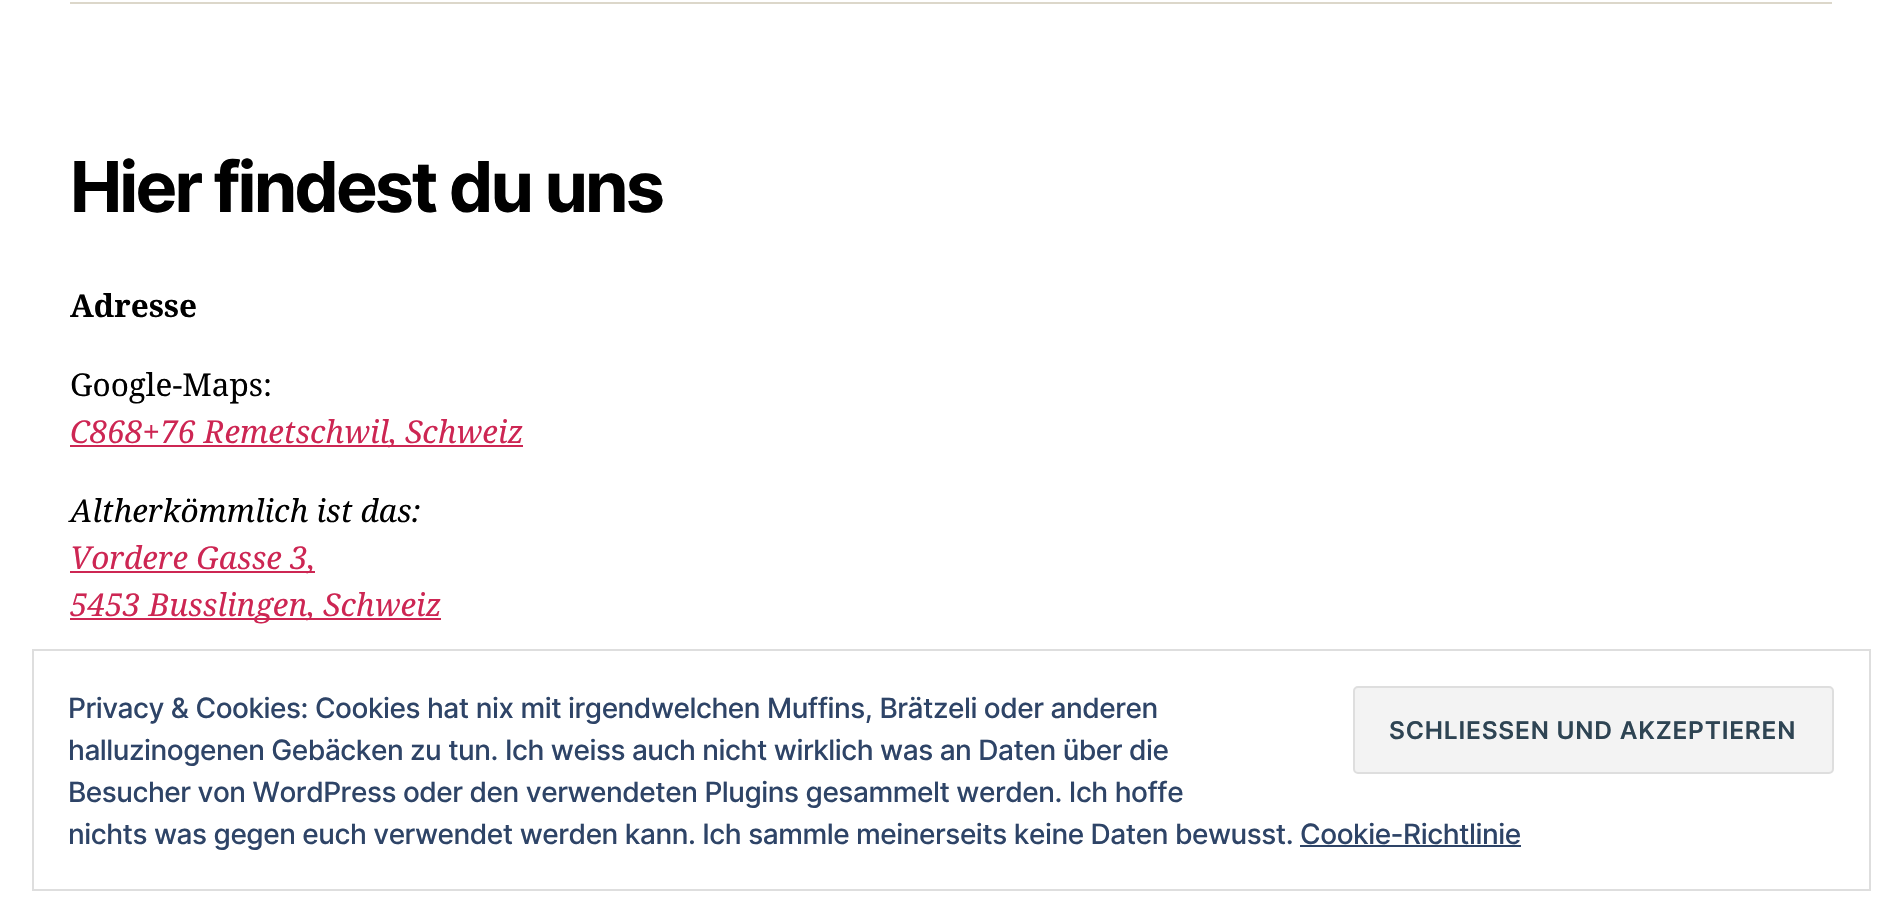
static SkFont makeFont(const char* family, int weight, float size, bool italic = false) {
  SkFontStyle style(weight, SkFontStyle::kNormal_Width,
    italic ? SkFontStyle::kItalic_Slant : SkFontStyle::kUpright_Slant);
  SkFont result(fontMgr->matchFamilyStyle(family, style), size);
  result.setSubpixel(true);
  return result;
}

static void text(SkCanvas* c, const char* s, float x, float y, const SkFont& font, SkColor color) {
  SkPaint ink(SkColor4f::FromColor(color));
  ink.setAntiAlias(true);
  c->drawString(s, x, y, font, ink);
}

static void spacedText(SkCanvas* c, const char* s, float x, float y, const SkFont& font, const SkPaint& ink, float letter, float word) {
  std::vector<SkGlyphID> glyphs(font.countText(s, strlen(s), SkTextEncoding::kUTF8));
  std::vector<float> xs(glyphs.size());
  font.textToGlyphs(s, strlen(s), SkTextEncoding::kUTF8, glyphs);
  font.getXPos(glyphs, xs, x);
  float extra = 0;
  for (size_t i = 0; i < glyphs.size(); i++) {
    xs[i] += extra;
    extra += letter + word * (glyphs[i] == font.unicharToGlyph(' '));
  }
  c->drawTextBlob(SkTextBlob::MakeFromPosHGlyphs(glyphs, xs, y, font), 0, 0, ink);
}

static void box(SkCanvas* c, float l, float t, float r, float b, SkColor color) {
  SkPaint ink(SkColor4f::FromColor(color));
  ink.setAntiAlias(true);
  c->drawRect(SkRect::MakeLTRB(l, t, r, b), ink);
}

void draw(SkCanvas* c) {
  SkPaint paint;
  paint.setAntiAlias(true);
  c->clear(0xffffffff);
  box(c, 70, 2, 1832, 4, 0xffdcd7ca);
  SkFont face1 = makeFont("Inter", 700, 70);
  paint.setColor(0xff000000);
  spacedText(c, "Hier findest du uns", 70, 212, face1, paint, -2.9f, 0);
  SkFont face2 = makeFont("Noto Serif", 700, 31.5f);
  text(c, "Adresse", 70, 317, face2, 0xff000000);
  SkFont face3 = makeFont("Noto Serif", 400, 31.5f);
  text(c, "Google-Maps:", 70, 396, face3, 0xff000000);
  box(c, 70, 445, 523, 447, 0xffcd2653);
  SkFont face4 = makeFont("Noto Serif", 400, 31.5f, true);
  text(c, "C868+76 Remetschwil, Schweiz", 70, 443, face4, 0xffcd2653);
  text(c, "Altherkömmlich ist das:", 70, 522, face4, 0xff000000);
  box(c, 70, 571, 315, 573, 0xffcd2653);
  text(c, "Vordere Gasse 3,", 70, 569, face4, 0xffcd2653);
  box(c, 70, 618, 441, 620, 0xffcd2653);
  text(c, "5453 Busslingen, Schweiz", 70, 616, face4, 0xffcd2653);
  paint.setStyle(SkPaint::kStroke_Style);
  paint.setStrokeWidth(2);
  paint.setColor(0xffdedede);
  c->drawRect(SkRect::MakeLTRB(33, 650, 1870, 890), paint);
  SkFont face5 = makeFont("Inter", 500, 28);
  paint.setStyle(SkPaint::kFill_Style);
  paint.setColor(0xff2e4467);
  spacedText(c, "Privacy & Cookies: Cookies hat nix mit irgendwelchen Muffins, Brätzeli oder anderen", 68, 718, face5, paint, -0.47f, 0);
  paint.setColor(0xfff3f3f3);
  c->drawRoundRect(SkRect::MakeLTRB(1354, 687, 1833, 773), 4, 4, paint);
  paint.setStyle(SkPaint::kStroke_Style);
  paint.setColor(0xffdedede);
  c->drawRoundRect(SkRect::MakeLTRB(1354, 687, 1833, 773), 4, 4, paint);
  SkFont face6 = makeFont("Inter", 600, 24.5f);
  paint.setStyle(SkPaint::kFill_Style);
  paint.setColor(0xff2e4453);
  spacedText(c, "SCHLIESSEN UND AKZEPTIEREN", 1389, 739, face6, paint, 0.8f, 0);
  paint.setColor(0xff2e4467);
  spacedText(c, "halluzinogenen Gebäcken zu tun. Ich weiss auch nicht wirklich was an Daten über die", 68, 760, face5, paint, -0.47f, 0);
  spacedText(c, "Besucher von WordPress oder den verwendeten Plugins gesammelt werden. Ich hoffe", 68, 802, face5, paint, -0.47f, 0);
  spacedText(c, "nichts was gegen euch verwendet werden kann. Ich sammle meinerseits keine Daten bewusst. Cookie-Richtlinie", 68, 844, face5, paint, -0.47f, 0);
  box(c, 1300, 845, 1521, 847, 0xff2e4467);
}
